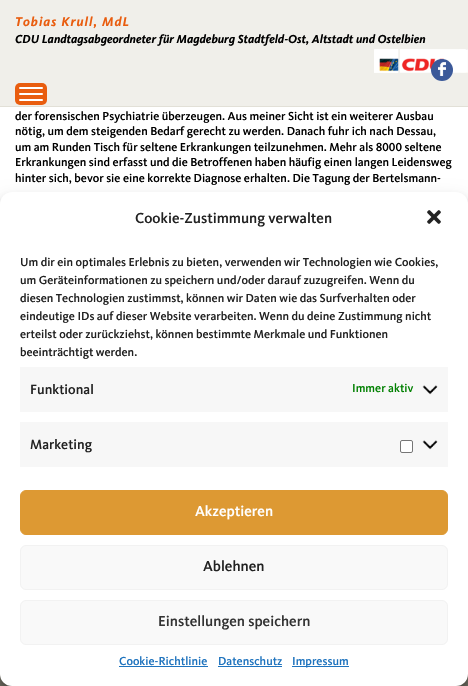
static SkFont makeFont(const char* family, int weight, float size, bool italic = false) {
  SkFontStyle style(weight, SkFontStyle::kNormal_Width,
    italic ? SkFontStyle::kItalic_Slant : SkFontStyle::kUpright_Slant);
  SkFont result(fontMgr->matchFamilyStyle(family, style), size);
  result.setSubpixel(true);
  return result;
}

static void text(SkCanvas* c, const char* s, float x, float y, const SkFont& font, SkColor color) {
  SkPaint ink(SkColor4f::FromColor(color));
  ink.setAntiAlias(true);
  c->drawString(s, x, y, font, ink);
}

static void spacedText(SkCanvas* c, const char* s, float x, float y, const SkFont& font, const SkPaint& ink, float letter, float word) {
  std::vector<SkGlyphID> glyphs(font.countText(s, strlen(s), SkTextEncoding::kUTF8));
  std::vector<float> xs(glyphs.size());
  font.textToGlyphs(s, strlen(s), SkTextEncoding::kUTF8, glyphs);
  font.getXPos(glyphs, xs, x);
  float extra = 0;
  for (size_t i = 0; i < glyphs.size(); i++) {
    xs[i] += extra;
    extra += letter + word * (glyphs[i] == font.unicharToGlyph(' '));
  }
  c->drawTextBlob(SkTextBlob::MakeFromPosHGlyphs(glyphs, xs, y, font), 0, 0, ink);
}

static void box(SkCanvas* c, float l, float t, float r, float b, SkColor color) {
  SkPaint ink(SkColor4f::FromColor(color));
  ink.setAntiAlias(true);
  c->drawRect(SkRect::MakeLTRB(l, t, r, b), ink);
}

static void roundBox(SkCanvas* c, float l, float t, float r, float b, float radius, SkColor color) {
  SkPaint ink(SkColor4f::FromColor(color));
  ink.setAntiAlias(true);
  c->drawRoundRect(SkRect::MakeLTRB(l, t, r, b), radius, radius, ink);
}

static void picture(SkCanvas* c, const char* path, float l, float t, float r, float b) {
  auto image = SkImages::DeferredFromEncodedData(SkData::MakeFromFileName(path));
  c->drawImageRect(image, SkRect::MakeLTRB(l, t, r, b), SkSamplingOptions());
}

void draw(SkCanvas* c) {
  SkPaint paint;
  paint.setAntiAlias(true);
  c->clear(0xffffffff);
  box(c, 0, 0, 468, 106, 0xfff0efea);
  box(c, 0, 106, 468, 107, 0xffe2e0d7);
  SkFont face1 = makeFont("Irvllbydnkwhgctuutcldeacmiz", 700, 13.25f);
  paint.setColor(0xffe95d0f);
  spacedText(c, "Tobias Krull, MdL", 15, 26, face1, paint, 1, 0);
  SkFont face2 = makeFont("Irvllbydnkwhgctuutcldeacmiz", 700, 12);
  text(c, "CDU Landtagsabgeordneter für Magdeburg Stadtfeld-Ost, Altstadt und Ostelbien", 15, 43, face2, 0xff000000);
  picture(c, "img_01.png", 374, 49, 468, 73);
  paint.setColor(0xff3b5999);
  c->drawCircle(442, 70, 11, paint);
  picture(c, "img_02.png", 438, 62, 446, 76);
  roundBox(c, 15, 83, 47, 105, 5, 0xffe95d0f);
  roundBox(c, 19, 87, 43, 89, 1, 0xffffffff);
  roundBox(c, 19, 93, 43, 95, 1, 0xffffffff);
  roundBox(c, 19, 99, 43, 101, 1, 0xffffffff);
  SkFont face3 = makeFont("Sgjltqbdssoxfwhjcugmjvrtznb", 500, 12);
  text(c, "der forensischen Psychiatrie überzeugen. Aus meiner Sicht ist ein weiterer Ausbau", 15, 120, face3, 0xff000000);
  text(c, "nötig, um dem steigenden Bedarf gerecht zu werden. Danach fuhr ich nach Dessau,", 15, 135, face3, 0xff000000);
  text(c, "um am Runden Tisch für seltene Erkrankungen teilzunehmen. Mehr als 8000 seltene", 15, 151, face3, 0xff000000);
  text(c, "Erkrankungen sind erfasst und die Betroffenen haben häufig einen langen Leidensweg", 15, 166, face3, 0xff000000);
  text(c, "hinter sich, bevor sie eine korrekte Diagnose erhalten. Die Tagung der Bertelsmann-", 15, 182, face3, 0xff000000);
  box(c, 0, 674, 468, 686, 0xff737165);
  paint.setColor(0x3b000000);
  paint.setMaskFilter(SkMaskFilter::MakeBlur(kNormal_SkBlurStyle, 3));
  c->drawRoundRect(SkRect::MakeLTRB(0, 198, 468, 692), 12, 12, paint);
  paint.setMaskFilter(nullptr);
  paint.setColor(0x30000000);
  paint.setMaskFilter(SkMaskFilter::MakeBlur(kNormal_SkBlurStyle, 10));
  c->drawRoundRect(SkRect::MakeLTRB(0, 202, 468, 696), 12, 12, paint);
  paint.setMaskFilter(nullptr);
  roundBox(c, 0, 192, 468, 686, 12, 0xffffffff);
  SkFont face4 = makeFont("Sgjltqbdssoxfwhjcugmjvrtznb", 500, 15);
  text(c, "Cookie-Zustimmung verwalten", 135, 223, face4, 0xff222222);
  picture(c, "img_03.png", 427, 210, 441, 224);
  text(c, "Um dir ein optimales Erlebnis zu bieten, verwenden wir Technologien wie Cookies,", 20, 266, face3, 0xff222222);
  text(c, "um Geräteinformationen zu speichern und/oder darauf zuzugreifen. Wenn du", 20, 284, face3, 0xff222222);
  text(c, "diesen Technologien zustimmst, können wir Daten wie das Surfverhalten oder", 20, 302, face3, 0xff222222);
  text(c, "eindeutige IDs auf dieser Website verarbeiten. Wenn du deine Zustimmung nicht", 20, 320, face3, 0xff222222);
  text(c, "erteilst oder zurückziehst, können bestimmte Merkmale und Funktionen", 20, 338, face3, 0xff222222);
  text(c, "beeinträchtigt werden.", 20, 356, face3, 0xff222222);
  box(c, 20, 367, 448, 412, 0xfff7f7f7);
  SkFont face5 = makeFont("Sgjltqbdssoxfwhjcugmjvrtznb", 500, 14);
  text(c, "Funktional", 30, 394, face5, 0xff222222);
  text(c, "Immer aktiv", 352, 392, face3, 0xff008000);
  picture(c, "img_04.png", 422, 385, 438, 395);
  box(c, 20, 422, 448, 467, 0xfff7f7f7);
  text(c, "Marketing", 30, 449, face5, 0xff222222);
  paint.setColor(0xffffffff);
  c->drawRoundRect(SkRect::MakeLTRB(400.5f, 440.5f, 412.5f, 452.5f), 1.5f, 1.5f, paint);
  paint.setStyle(SkPaint::kStroke_Style);
  paint.setStrokeWidth(1);
  paint.setColor(0xff767676);
  c->drawRoundRect(SkRect::MakeLTRB(400.5f, 440.5f, 412.5f, 452.5f), 1.5f, 1.5f, paint);
  picture(c, "img_04.png", 422, 440, 438, 450);
  paint.setStyle(SkPaint::kFill_Style);
  paint.setColor(0xffdd9933);
  c->drawRoundRect(SkRect::MakeLTRB(20.5f, 490.5f, 447.5f, 534.5f), 5.5f, 5.5f, paint);
  paint.setStyle(SkPaint::kStroke_Style);
  c->drawRoundRect(SkRect::MakeLTRB(20.5f, 490.5f, 447.5f, 534.5f), 5.5f, 5.5f, paint);
  text(c, "Akzeptieren", 195, 516, face4, 0xffffffff);
  paint.setStyle(SkPaint::kFill_Style);
  paint.setColor(0xfff9f9f9);
  c->drawRoundRect(SkRect::MakeLTRB(20.5f, 545.5f, 447.5f, 589.5f), 5.5f, 5.5f, paint);
  paint.setStyle(SkPaint::kStroke_Style);
  paint.setColor(0xfff2f2f2);
  c->drawRoundRect(SkRect::MakeLTRB(20.5f, 545.5f, 447.5f, 589.5f), 5.5f, 5.5f, paint);
  text(c, "Ablehnen", 203, 571, face4, 0xff222222);
  paint.setStyle(SkPaint::kFill_Style);
  paint.setColor(0xfff9f9f9);
  c->drawRoundRect(SkRect::MakeLTRB(20.5f, 600.5f, 447.5f, 644.5f), 5.5f, 5.5f, paint);
  paint.setStyle(SkPaint::kStroke_Style);
  paint.setColor(0xfff2f2f2);
  c->drawRoundRect(SkRect::MakeLTRB(20.5f, 600.5f, 447.5f, 644.5f), 5.5f, 5.5f, paint);
  text(c, "Einstellungen speichern", 158, 626, face4, 0xff333333);
  text(c, "Cookie-Richtlinie", 119, 665, face3, 0xff1e73be);
  box(c, 119, 666, 208, 667, 0xff1e73be);
  text(c, "Datenschutz", 218, 665, face3, 0xff1e73be);
  box(c, 218, 666, 282, 667, 0xff1e73be);
  box(c, 292, 666, 349, 667, 0xff1e73be);
  text(c, "Impressum", 292, 665, face3, 0xff1e73be);
}
